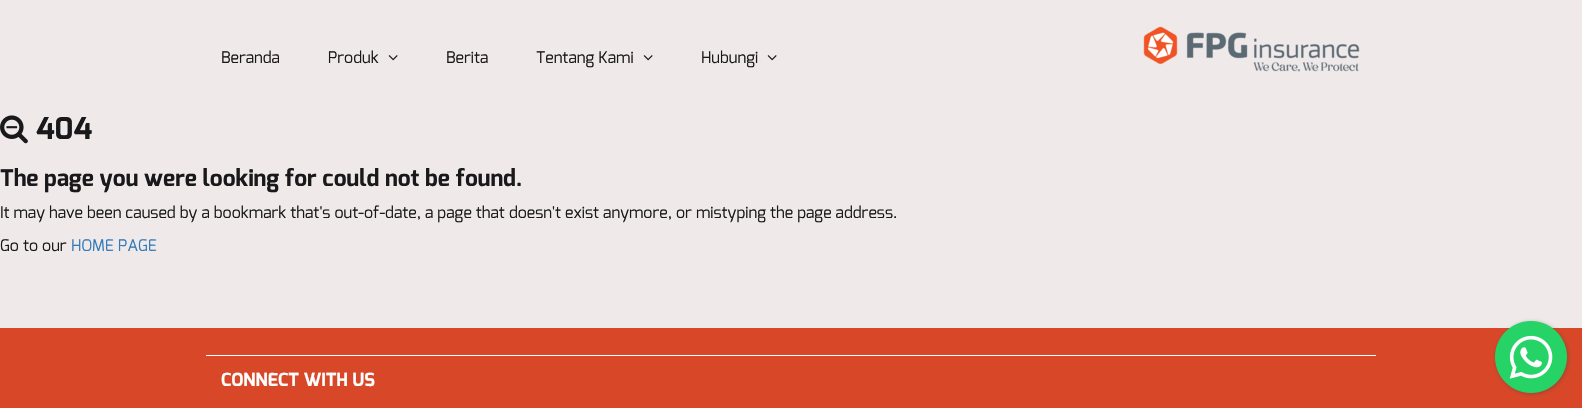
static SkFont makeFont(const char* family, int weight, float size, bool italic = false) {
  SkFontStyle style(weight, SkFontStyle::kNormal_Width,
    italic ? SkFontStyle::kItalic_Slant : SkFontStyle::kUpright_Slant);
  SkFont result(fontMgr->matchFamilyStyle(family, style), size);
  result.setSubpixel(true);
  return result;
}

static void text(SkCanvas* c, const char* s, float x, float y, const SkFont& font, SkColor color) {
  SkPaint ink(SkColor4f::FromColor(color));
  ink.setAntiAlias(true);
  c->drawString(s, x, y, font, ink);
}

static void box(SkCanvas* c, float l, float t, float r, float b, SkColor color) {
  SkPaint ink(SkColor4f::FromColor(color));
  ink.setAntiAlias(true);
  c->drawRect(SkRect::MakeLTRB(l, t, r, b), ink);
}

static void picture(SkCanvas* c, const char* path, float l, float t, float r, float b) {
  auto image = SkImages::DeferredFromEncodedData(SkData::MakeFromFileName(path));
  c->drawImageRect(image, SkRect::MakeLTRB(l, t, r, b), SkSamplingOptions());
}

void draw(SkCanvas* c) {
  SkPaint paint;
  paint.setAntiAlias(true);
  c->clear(0xffefe9e9);
  SkFont face1 = makeFont("Exo", 400, 16);
  text(c, "Beranda", 221, 63, face1, 0xff19181a);
  text(c, "Produk", 328, 63, face1, 0xff19181a);
  picture(c, "img_01.png", 388, 55, 398, 61);
  text(c, "Berita", 446, 63, face1, 0xff19181a);
  text(c, "Tentang Kami", 536, 63, face1, 0xff19181a);
  picture(c, "img_01.png", 643, 55, 653, 61);
  text(c, "Hubungi", 701, 63, face1, 0xff19181a);
  picture(c, "img_01.png", 767, 55, 777, 61);
  picture(c, "img_02.png", 1143, 26, 1360, 72);
  picture(c, "img_03.png", 0, 115, 28, 144);
  SkFont face2 = makeFont("Exo", 700, 30);
  text(c, "404", 36, 139, face2, 0xff19181a);
  SkFont face3 = makeFont("Exo", 700, 23);
  text(c, "The page you were looking for could not be found.", 0, 186, face3, 0xff19181a);
  text(c, "It may have been caused by a bookmark that's out-of-date, a page that doesn't exist anymore, or mistyping the page address.", 0, 218, face1, 0xff19181a);
  text(c, "Go to our", 0, 251, face1, 0xff19181a);
  text(c, "HOME PAGE", 71, 251, face1, 0xff337ab7);
  box(c, 0, 328, 1582, 408, 0xffd84728);
  box(c, 206, 355, 1376, 356, 0xffffffff);
  SkFont face4 = makeFont("Exo", 700, 18);
  text(c, "CONNECT WITH US", 221, 386, face4, 0xffffffff);
  paint.setColor(0x663c3c3c);
  paint.setMaskFilter(SkMaskFilter::MakeBlur(kNormal_SkBlurStyle, 2));
  c->drawRoundRect(SkRect::MakeLTRB(1496, 322, 1568, 394), 36, 36, paint);
  paint.setMaskFilter(nullptr);
  picture(c, "img_04.png", 1495, 321, 1567, 393);
}
